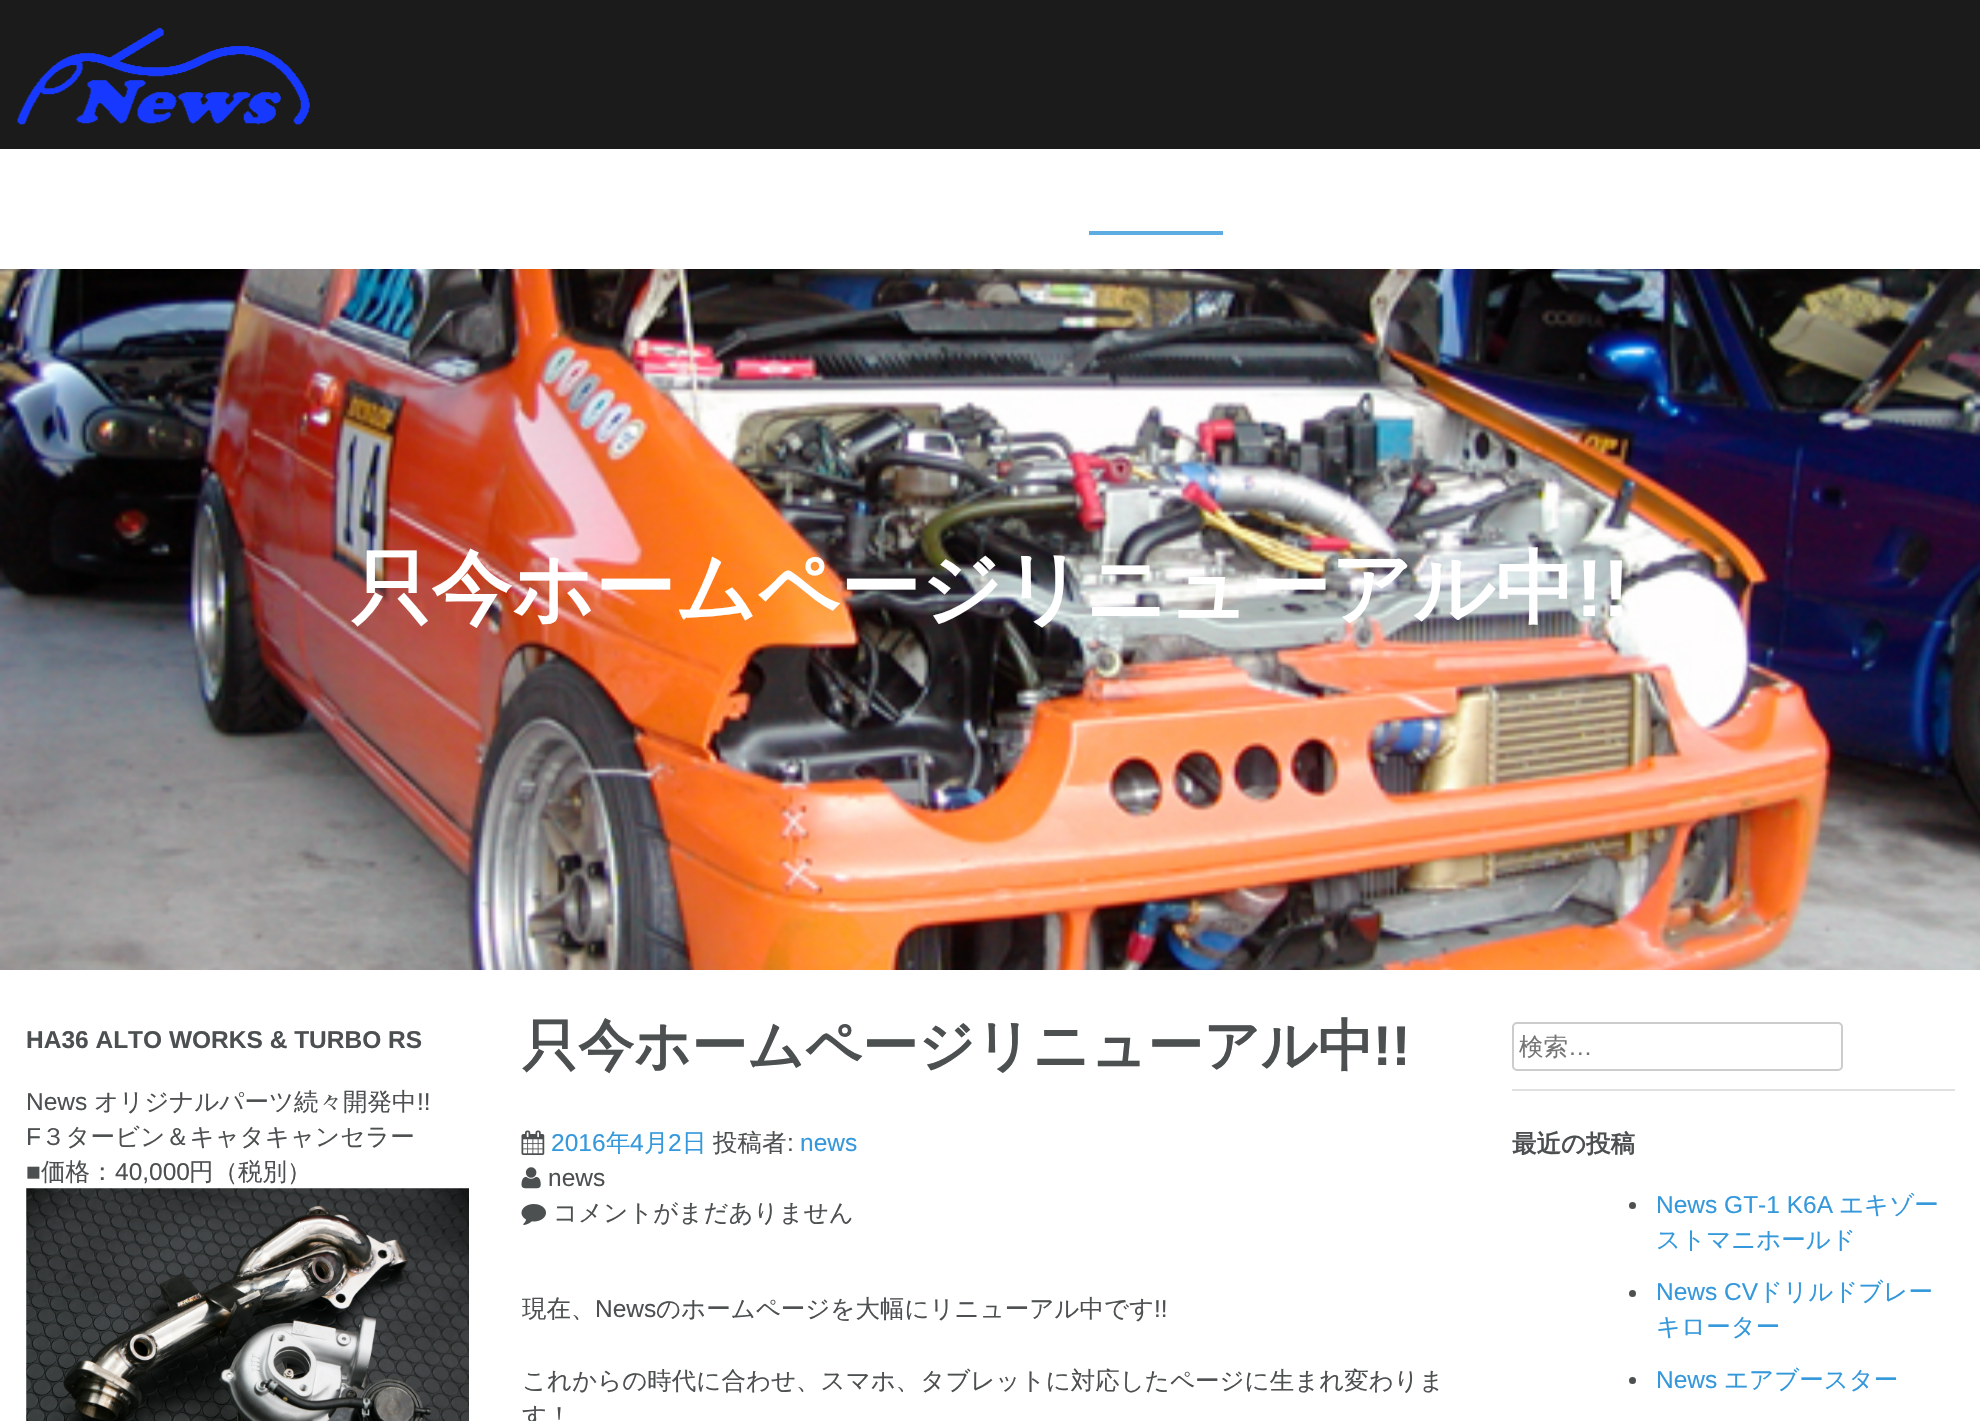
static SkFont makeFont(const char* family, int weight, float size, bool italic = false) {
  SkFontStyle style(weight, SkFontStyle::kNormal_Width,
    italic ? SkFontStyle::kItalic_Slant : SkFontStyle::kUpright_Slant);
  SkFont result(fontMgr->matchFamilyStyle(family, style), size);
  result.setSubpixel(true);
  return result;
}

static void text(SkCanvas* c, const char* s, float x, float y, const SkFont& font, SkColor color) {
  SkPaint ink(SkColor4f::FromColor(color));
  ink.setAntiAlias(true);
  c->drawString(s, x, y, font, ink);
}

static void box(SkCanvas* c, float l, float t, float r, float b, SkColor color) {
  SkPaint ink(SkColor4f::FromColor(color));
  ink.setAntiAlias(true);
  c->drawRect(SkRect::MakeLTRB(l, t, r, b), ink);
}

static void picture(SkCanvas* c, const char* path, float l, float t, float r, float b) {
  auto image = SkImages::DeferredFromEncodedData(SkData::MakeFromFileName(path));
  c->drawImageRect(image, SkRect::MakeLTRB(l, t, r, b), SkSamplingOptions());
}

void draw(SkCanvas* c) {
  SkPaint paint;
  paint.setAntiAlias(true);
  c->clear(0xffffffff);
  picture(c, "img_01.png", 0, 269, 1980, 970);
  box(c, 0, 0, 1980, 149, 0xff1b1b1b);
  picture(c, "img_02.png", 17, 28, 310, 125);
  box(c, 1089, 231, 1223, 235, 0xff5dade2);
  SkFont face1 = makeFont("WenQuanYi Zen Hei", 700, 80.5f);
  text(c, "只今ホームページリニューアル中", 351, 616, face1, 0xffffffff);
  SkFont face2 = makeFont("Liberation Sans", 700, 80.5f);
  text(c, "!!", 1576, 616, face2, 0xffffffff);
  SkFont face3 = makeFont("Liberation Sans", 700, 24.5f);
  text(c, "HA36 ALTO WORKS & TURBO RS", 26, 1048, face3, 0xff4d5051);
  SkFont face4 = makeFont("Liberation Sans", 400, 24.5f);
  text(c, "News", 26, 1110, face4, 0xff4d5051);
  SkFont face5 = makeFont("WenQuanYi Zen Hei", 500, 24.5f);
  text(c, "オリジナルパーツ続々開発中", 94, 1110, face5, 0xff4d5051);
  text(c, "!!", 417, 1110, face4, 0xff4d5051);
  text(c, "F", 26, 1145, face4, 0xff4d5051);
  text(c, "３タービン＆キャタキャンセラー", 41, 1145, face5, 0xff4d5051);
  text(c, "■", 26, 1180, face4, 0xff4d5051);
  text(c, "価格：", 41, 1180, face5, 0xff4d5051);
  text(c, "40,000", 115, 1180, face4, 0xff4d5051);
  text(c, "円（税別）", 189, 1180, face5, 0xff4d5051);
  picture(c, "img_03.png", 26, 1188, 469, 1421);
  SkFont face6 = makeFont("WenQuanYi Zen Hei", 700, 56);
  text(c, "只今ホームページリニューアル中", 522, 1065, face6, 0xff4d5051);
  SkFont face7 = makeFont("Liberation Sans", 700, 56);
  text(c, "!!", 1373, 1065, face7, 0xff4d5051);
  picture(c, "img_04.png", 521, 1130, 545, 1155);
  text(c, "2016", 551, 1151, face4, 0xff3498db);
  text(c, "年", 606, 1151, face5, 0xff3498db);
  text(c, "4", 630, 1151, face4, 0xff3498db);
  text(c, "月", 644, 1151, face5, 0xff3498db);
  text(c, "2", 668, 1151, face4, 0xff3498db);
  text(c, "日", 682, 1151, face5, 0xff3498db);
  text(c, "投稿者", 713, 1151, face5, 0xff4d5051);
  text(c, ":", 787, 1151, face4, 0xff4d5051);
  text(c, "news", 800, 1151, face4, 0xff3498db);
  picture(c, "img_05.png", 521, 1167, 541, 1189);
  text(c, "news", 548, 1186, face4, 0xff4d5051);
  picture(c, "img_06.png", 521, 1204, 546, 1225);
  text(c, "コメントがまだありません", 553, 1221, face5, 0xff4d5051);
  text(c, "現在、", 522, 1317, face5, 0xff4d5051);
  text(c, "News", 595, 1317, face4, 0xff4d5051);
  text(c, "のホームページを大幅にリニューアル中です", 656, 1317, face5, 0xff4d5051);
  text(c, "!!", 1154, 1317, face4, 0xff4d5051);
  text(c, "これからの時代に合わせ、スマホ、タブレットに対応したページに生まれ変わりま", 522, 1389, face5, 0xff4d5051);
  text(c, "す！", 522, 1424, face5, 0xff4d5051);
  box(c, 1512, 1089, 1955, 1091, 0xffe1e1e1);
  paint.setStyle(SkPaint::kStroke_Style);
  paint.setStrokeWidth(2);
  paint.setColor(0xffcccccc);
  c->drawRoundRect(SkRect::MakeLTRB(1513, 1023, 1842, 1070), 4, 4, paint);
  text(c, "検索", 1519, 1055, face5, 0xff757575);
  text(c, "…", 1568, 1055, face4, 0xff757575);
  SkFont face8 = makeFont("WenQuanYi Zen Hei", 700, 24.5f);
  text(c, "最近の投稿", 1512, 1152, face8, 0xff4d5051);
  paint.setStyle(SkPaint::kFill_Style);
  paint.setColor(0xff4d5051);
  c->drawCircle(1632.5f, 1205.5f, 3.5f, paint);
  text(c, "News GT-1 K6A", 1656, 1213, face4, 0xff3498db);
  text(c, "エキゾー", 1839, 1213, face5, 0xff3498db);
  text(c, "ストマニホールド", 1656, 1248, face5, 0xff3498db);
  c->drawCircle(1632.5f, 1293.5f, 3.5f, paint);
  text(c, "News CV", 1656, 1300, face4, 0xff3498db);
  text(c, "ドリルドブレー", 1758, 1300, face5, 0xff3498db);
  text(c, "キローター", 1656, 1335, face5, 0xff3498db);
  c->drawCircle(1632.5f, 1380.5f, 3.5f, paint);
  text(c, "News", 1656, 1388, face4, 0xff3498db);
  text(c, "エアブースター", 1724, 1388, face5, 0xff3498db);
}
